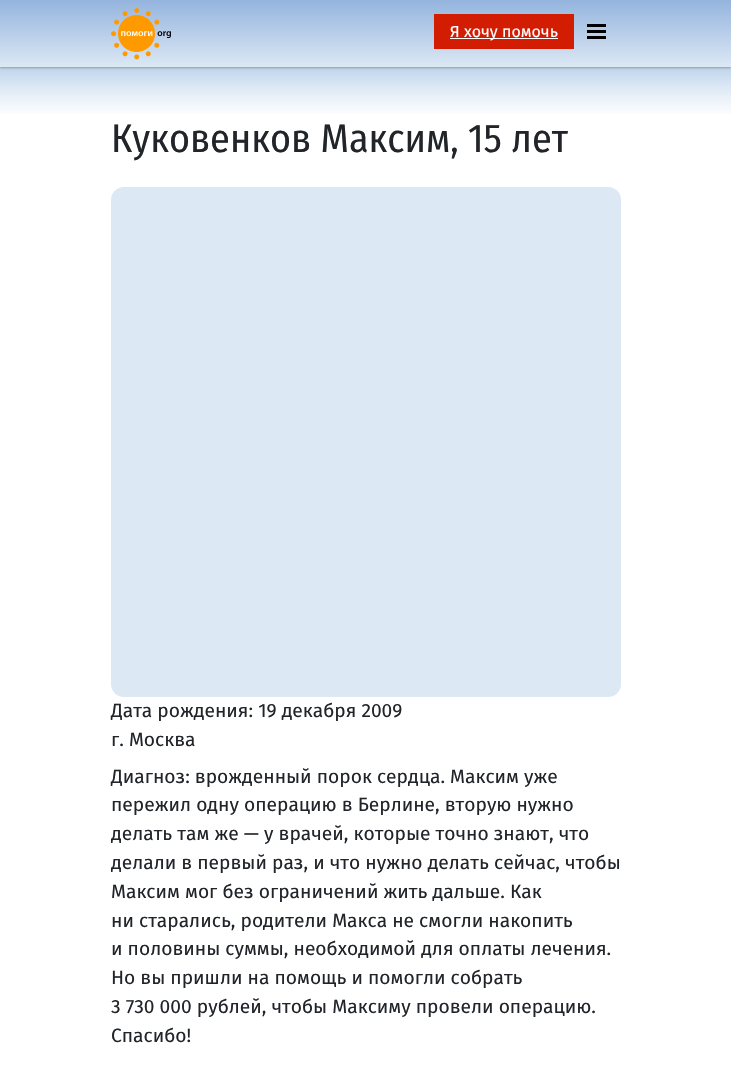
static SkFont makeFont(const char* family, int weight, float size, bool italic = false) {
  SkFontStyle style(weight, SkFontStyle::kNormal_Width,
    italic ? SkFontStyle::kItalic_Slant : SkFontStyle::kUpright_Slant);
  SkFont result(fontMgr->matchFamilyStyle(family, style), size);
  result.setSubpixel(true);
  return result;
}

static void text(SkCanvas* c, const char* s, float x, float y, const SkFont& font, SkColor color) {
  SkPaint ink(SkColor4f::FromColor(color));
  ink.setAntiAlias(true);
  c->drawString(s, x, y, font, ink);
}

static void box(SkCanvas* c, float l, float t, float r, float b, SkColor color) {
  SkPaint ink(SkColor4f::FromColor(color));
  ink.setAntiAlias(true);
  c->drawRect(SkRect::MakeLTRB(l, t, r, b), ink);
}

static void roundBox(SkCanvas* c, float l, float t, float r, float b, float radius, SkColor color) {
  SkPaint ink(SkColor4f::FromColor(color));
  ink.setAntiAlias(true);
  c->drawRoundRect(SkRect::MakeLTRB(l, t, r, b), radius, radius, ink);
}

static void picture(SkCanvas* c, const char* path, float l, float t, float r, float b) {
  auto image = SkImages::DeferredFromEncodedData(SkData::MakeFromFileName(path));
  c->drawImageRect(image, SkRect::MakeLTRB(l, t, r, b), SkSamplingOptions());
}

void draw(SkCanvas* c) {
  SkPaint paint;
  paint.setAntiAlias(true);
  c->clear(0xffffffff);
  picture(c, "img_01.png", 0, 67, 731, 114);
  paint.setColor(0xff999999);
  paint.setMaskFilter(SkMaskFilter::MakeBlur(kNormal_SkBlurStyle, 1));
  c->drawRect(SkRect::MakeLTRB(0, 1, 731, 68), paint);
  paint.setMaskFilter(nullptr);
  {
    const SkColor colors[] = {0xff94b4de, 0xffdce8f4};
    const float stops[] = {0, 1};
    const SkPoint ends[] = {{366, 0}, {366, 67}};
    paint.setShader(SkGradientShader::MakeLinear(ends, colors, stops, 2, SkTileMode::kClamp));
    paint.setAlpha(255);
  }
  c->drawRect(SkRect::MakeLTRB(0, 0, 731, 67), paint);
  picture(c, "img_02.png", 111, 8, 171, 60);
  box(c, 434, 14, 574, 49, 0xffd21d03);
  box(c, 450, 38, 558, 39, 0xffffffff);
  SkFont face1 = makeFont("Fira Sans", 400, 16);
  text(c, "Я хочу помочь", 450, 37, face1, 0xffffffff);
  box(c, 587, 24, 606, 27, 0xff000000);
  box(c, 587, 30, 606, 33, 0xff000000);
  box(c, 587, 36, 606, 39, 0xff000000);
  SkFont face2 = makeFont("Fira Sans Condensed", 400, 40);
  text(c, "Куковенков Максим, 15 лет", 111, 152, face2, 0xff212529);
  roundBox(c, 111, 187, 621, 697, 13, 0xffdce8f4);
  SkFont face3 = makeFont("Fira Sans", 400, 19.2f);
  text(c, "Дата рождения: 19 декабря 2009", 111, 717, face3, 0xff212529);
  text(c, "г. Москва", 111, 746, face3, 0xff212529);
  text(c, "Диагноз: врожденный порок сердца. Максим уже", 111, 783, face3, 0xff212529);
  text(c, "пережил одну операцию в Берлине, вторую нужно", 111, 811, face3, 0xff212529);
  text(c, "делать там же — у врачей, которые точно знают, что", 111, 840, face3, 0xff212529);
  text(c, "делали в первый раз, и что нужно делать сейчас, чтобы", 111, 869, face3, 0xff212529);
  text(c, "Максим мог без ограничений жить дальше. Как", 111, 898, face3, 0xff212529);
  text(c, "ни старались, родители Макса не смогли накопить", 111, 927, face3, 0xff212529);
  text(c, "и половины суммы, необходимой для оплаты лечения.", 111, 955, face3, 0xff212529);
  text(c, "Но вы пришли на помощь и помогли собрать", 111, 984, face3, 0xff212529);
  text(c, "3 730 000 рублей, чтобы Максиму провели операцию.", 111, 1013, face3, 0xff212529);
  text(c, "Спасибо!", 111, 1042, face3, 0xff212529);
}
